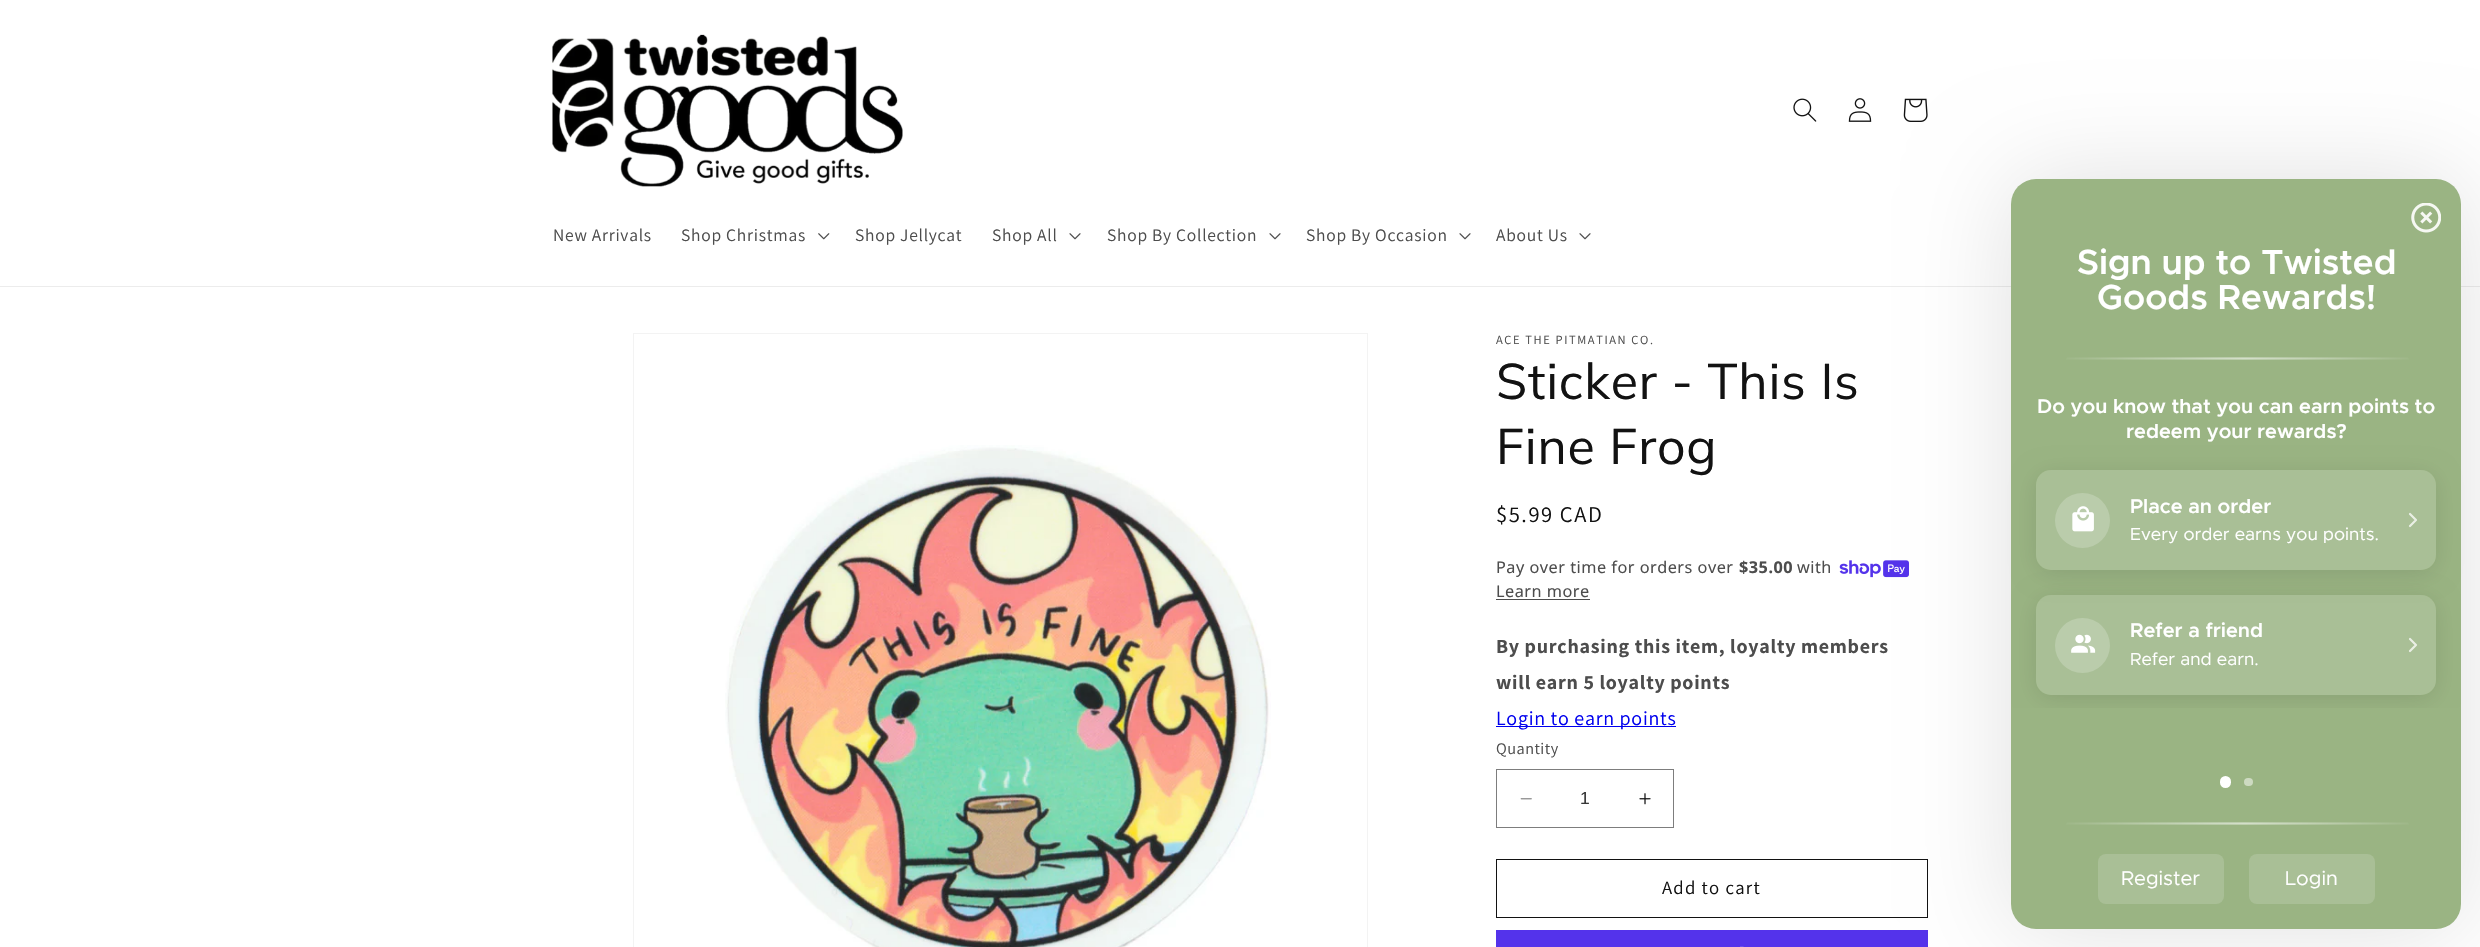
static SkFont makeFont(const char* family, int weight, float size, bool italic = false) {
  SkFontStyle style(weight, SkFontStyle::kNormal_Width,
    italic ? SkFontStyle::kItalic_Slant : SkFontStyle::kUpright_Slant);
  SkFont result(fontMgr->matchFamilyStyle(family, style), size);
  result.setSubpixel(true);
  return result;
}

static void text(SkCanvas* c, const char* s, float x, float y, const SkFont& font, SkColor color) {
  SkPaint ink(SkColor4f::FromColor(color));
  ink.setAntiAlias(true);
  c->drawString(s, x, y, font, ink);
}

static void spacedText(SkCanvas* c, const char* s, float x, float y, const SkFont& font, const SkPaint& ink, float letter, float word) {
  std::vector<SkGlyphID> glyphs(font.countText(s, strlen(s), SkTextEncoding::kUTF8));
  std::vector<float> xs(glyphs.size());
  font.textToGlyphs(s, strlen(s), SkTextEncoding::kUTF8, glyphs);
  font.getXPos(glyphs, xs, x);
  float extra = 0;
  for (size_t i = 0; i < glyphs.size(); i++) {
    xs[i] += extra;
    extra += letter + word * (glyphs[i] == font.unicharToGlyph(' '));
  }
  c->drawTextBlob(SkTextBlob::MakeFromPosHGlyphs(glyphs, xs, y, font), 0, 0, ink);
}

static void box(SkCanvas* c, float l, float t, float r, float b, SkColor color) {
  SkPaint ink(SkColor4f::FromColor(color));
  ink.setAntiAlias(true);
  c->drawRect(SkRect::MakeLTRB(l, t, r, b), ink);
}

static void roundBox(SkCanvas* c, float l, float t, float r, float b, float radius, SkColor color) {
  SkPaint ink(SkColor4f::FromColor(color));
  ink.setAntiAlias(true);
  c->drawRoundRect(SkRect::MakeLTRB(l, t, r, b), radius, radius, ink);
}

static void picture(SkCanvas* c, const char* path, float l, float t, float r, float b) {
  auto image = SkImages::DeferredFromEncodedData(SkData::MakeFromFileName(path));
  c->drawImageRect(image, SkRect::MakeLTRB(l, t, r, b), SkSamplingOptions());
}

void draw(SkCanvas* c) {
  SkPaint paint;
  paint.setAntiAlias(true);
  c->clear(0xffffffff);
  box(c, 0, 286, 2480, 287, 0xffececec);
  picture(c, "img_01.png", 552, 34, 903, 187);
  picture(c, "img_02.png", 1793, 98, 1817, 122);
  picture(c, "img_03.png", 1848, 98, 1872, 122);
  picture(c, "img_04.png", 1903, 98, 1928, 122);
  SkFont face1 = makeFont("Assistant", 400, 17.5f);
  paint.setColor(0xff4d4d4d);
  spacedText(c, "New Arrivals", 553, 241, face1, paint, 0.75f, 0);
  spacedText(c, "Shop Christmas", 681, 241, face1, paint, 0.75f, 0);
  picture(c, "img_05.png", 818, 233, 830, 240);
  spacedText(c, "Shop Jellycat", 855, 241, face1, paint, 0.75f, 0);
  spacedText(c, "Shop All", 992, 241, face1, paint, 0.75f, 0);
  picture(c, "img_06.png", 1069, 233, 1081, 240);
  spacedText(c, "Shop By Collection", 1107, 241, face1, paint, 0.75f, 0);
  picture(c, "img_06.png", 1269, 233, 1281, 240);
  spacedText(c, "Shop By Occasion", 1306, 241, face1, paint, 0.75f, 0);
  picture(c, "img_06.png", 1459, 233, 1471, 240);
  spacedText(c, "About Us", 1496, 241, face1, paint, 0.75f, 0);
  picture(c, "img_06.png", 1579, 233, 1591, 240);
  paint.setStyle(SkPaint::kStroke_Style);
  paint.setStrokeWidth(1);
  paint.setColor(0xfff3f3f3);
  c->drawRect(SkRect::MakeLTRB(633.5f, 333.5f, 1367.5f, 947.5f), paint);
  picture(c, "img_07.png", 725, 445, 1271, 947);
  SkFont face2 = makeFont("Assistant", 400, 12.5f);
  paint.setStyle(SkPaint::kFill_Style);
  paint.setColor(0xff4d4d4d);
  spacedText(c, "ACE THE PITMATIAN CO.", 1496, 344, face2, paint, 1.6f, 0);
  SkFont face3 = makeFont("Muli", 400, 50);
  paint.setColor(0xff121212);
  spacedText(c, "Sticker - This Is", 1496, 399, face3, paint, 0.75f, 0);
  spacedText(c, "Fine Frog", 1496, 464, face3, paint, 0.75f, 0);
  SkFont face4 = makeFont("Assistant", 400, 22.5f);
  spacedText(c, "$5.99 CAD", 1496, 522, face4, paint, 1.6f, 0);
  SkFont face5 = makeFont("Noto Sans", 400, 16.25f);
  paint.setColor(0xff4d4d4d);
  spacedText(c, "Pay over time for orders over", 1496, 573, face5, paint, 0.5f, 0);
  SkFont face6 = makeFont("Noto Sans", 700, 16.25f);
  spacedText(c, "$35.00", 1739, 573, face6, paint, 0.5f, 0);
  spacedText(c, "with", 1797, 573, face5, paint, 0.5f, 0);
  picture(c, "img_08.png", 1839, 560, 1909, 578);
  spacedText(c, "Learn more", 1496, 597, face5, paint, 0.5f, 0);
  box(c, 1496, 599, 1590, 600, 0xff4d4d4d);
  SkFont face7 = makeFont("Assistant", 700, 20);
  spacedText(c, "By purchasing this item, loyalty members", 1496, 653, face7, paint, 0.75f, 0);
  spacedText(c, "will earn 5 loyalty points", 1496, 689, face7, paint, 0.75f, 0);
  box(c, 1496, 726, 1676, 727, 0xff0000ee);
  SkFont face8 = makeFont("Assistant", 400, 20);
  paint.setColor(0xff0000ee);
  spacedText(c, "Login to earn points", 1496, 725, face8, paint, 0.75f, 0);
  SkFont face9 = makeFont("Assistant", 400, 16.25f);
  paint.setColor(0xff4d4d4d);
  spacedText(c, "Quantity", 1496, 754, face9, paint, 0.5f, 0);
  picture(c, "img_09.png", 1520, 798, 1532, 800);
  picture(c, "img_10.png", 1639, 793, 1651, 805);
  paint.setStyle(SkPaint::kStroke_Style);
  paint.setColor(0xff7d7d7d);
  c->drawRect(SkRect::MakeLTRB(1496.5f, 769.5f, 1673.5f, 827.5f), paint);
  SkFont face10 = makeFont("Liberation Sans", 400, 17.5f);
  text(c, "1", 1580, 804, face10, 0xff363636);
  paint.setColor(0xff121212);
  c->drawRect(SkRect::MakeLTRB(1496.5f, 859.5f, 1927.5f, 917.5f), paint);
  SkFont face11 = makeFont("Assistant", 400, 18.75f);
  paint.setStyle(SkPaint::kFill_Style);
  spacedText(c, "Add to cart", 1662, 894, face11, paint, 1.25f, 0);
  box(c, 1496, 930, 1928, 947, 0xff5433eb);
  picture(c, "img_11.png", 1740, 946, 1744, 947);
  paint.setColor(0x1f000000);
  paint.setMaskFilter(SkMaskFilter::MakeBlur(kNormal_SkBlurStyle, 50));
  c->drawRoundRect(SkRect::MakeLTRB(2011, 179, 2461, 929), 25, 25, paint);
  paint.setMaskFilter(nullptr);
  roundBox(c, 2011, 179, 2461, 929, 25, 0xff9ab483);
  picture(c, "img_12.png", 2411, 203, 2441, 233);
  SkFont face12 = makeFont("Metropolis", 600, 35);
  text(c, "Sign up to Twisted", 2077, 274, face12, 0xffffffff);
  text(c, "Goods Rewards!", 2097, 309, face12, 0xffffffff);
  {
    const SkColor colors[] = {0xff9ab483, 0xffbdceae, 0xff9ab483};
    const float stops[] = {0, 0.52f, 1};
    const SkPoint ends[] = {{2055, 359}, {2419, 359}};
    paint.setShader(SkGradientShader::MakeLinear(ends, colors, stops, 3, SkTileMode::kClamp));
    paint.setAlpha(255);
  }
  c->drawRect(SkRect::MakeLTRB(2066, 358, 2409, 360), paint);
  {
    const SkColor colors[] = {0x00ffffff, 0x59ffffff, 0x00ffffff};
    const float stops[] = {0, 0.52f, 1};
    const SkPoint ends[] = {{2055, 358}, {2419, 358}};
    paint.setShader(SkGradientShader::MakeLinear(ends, colors, stops, 3, SkTileMode::kClamp));
    paint.setAlpha(255);
  }
  c->drawRect(SkRect::MakeLTRB(2067, 357, 2408, 359), paint);
  SkFont face13 = makeFont("Metropolis", 600, 20);
  text(c, "Do you know that you can earn points to", 2037, 413, face13, 0xffffffff);
  text(c, "redeem your rewards?", 2126, 438, face13, 0xffffffff);
  c->save();
  c->clipPath(SkPathBuilder(SkPathFillType::kEvenOdd).moveTo(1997, 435).lineTo(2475, 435).lineTo(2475, 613).lineTo(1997, 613).close().moveTo(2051, 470).lineTo(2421, 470).cubicTo(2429.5f, 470, 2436, 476.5f, 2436, 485).lineTo(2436, 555).cubicTo(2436, 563.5f, 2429.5f, 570, 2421, 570).lineTo(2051, 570).cubicTo(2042.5f, 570, 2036, 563.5f, 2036, 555).lineTo(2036, 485).cubicTo(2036, 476.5f, 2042.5f, 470, 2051, 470).close().detach(), true);
  paint.setShader(nullptr);
  paint.setColor(0x1a000000);
  paint.setMaskFilter(SkMaskFilter::MakeBlur(kNormal_SkBlurStyle, 12.5f));
  c->drawRoundRect(SkRect::MakeLTRB(2036, 474, 2436, 574), 15, 15, paint);
  paint.setMaskFilter(nullptr);
  c->restore();
  roundBox(c, 2036, 470, 2436, 570, 15, 0x26ffffff);
  paint.setColor(0xffbaccab);
  c->drawCircle(2082.5f, 520.5f, 27.5f, paint);
  picture(c, "img_13.png", 2072, 506, 2094, 532);
  text(c, "Place an order", 2130, 513, face13, 0xffffffff);
  SkFont face14 = makeFont("Metropolis", 400, 17.5f);
  text(c, "Every order earns you points.", 2130, 540, face14, 0xffffffff);
  paint.setStyle(SkPaint::kStroke_Style);
  paint.setStrokeWidth(2.2f);
  paint.setStrokeCap(SkPaint::kRound_Cap);
  paint.setStrokeJoin(SkPaint::kRound_Join);
  paint.setColor(0xffeaefe5);
  c->drawPath(SkPathBuilder().moveTo(2410, 514).lineTo(2416, 520).lineTo(2410, 526).detach(), paint);
  c->save();
  c->clipRect(SkRect::MakeLTRB(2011, 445, 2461, 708));
  c->clipPath(SkPathBuilder(SkPathFillType::kEvenOdd).moveTo(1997, 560).lineTo(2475, 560).lineTo(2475, 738).lineTo(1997, 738).close().moveTo(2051, 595).lineTo(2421, 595).cubicTo(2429.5f, 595, 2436, 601.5f, 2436, 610).lineTo(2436, 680).cubicTo(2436, 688.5f, 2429.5f, 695, 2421, 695).lineTo(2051, 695).cubicTo(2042.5f, 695, 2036, 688.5f, 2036, 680).lineTo(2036, 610).cubicTo(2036, 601.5f, 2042.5f, 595, 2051, 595).close().detach(), true);
  paint.setStyle(SkPaint::kFill_Style);
  paint.setColor(0x1a000000);
  paint.setMaskFilter(SkMaskFilter::MakeBlur(kNormal_SkBlurStyle, 12.5f));
  c->drawRoundRect(SkRect::MakeLTRB(2036, 599, 2436, 699), 15, 15, paint);
  paint.setMaskFilter(nullptr);
  c->restore();
  roundBox(c, 2036, 595, 2436, 695, 15, 0x26ffffff);
  paint.setColor(0xffbaccab);
  c->drawCircle(2082.5f, 645.5f, 27.5f, paint);
  picture(c, "img_14.png", 2071, 634, 2096, 653);
  text(c, "Refer a friend", 2130, 637, face13, 0xffffffff);
  text(c, "Refer and earn.", 2130, 665, face14, 0xffffffff);
  paint.setStyle(SkPaint::kStroke_Style);
  paint.setColor(0xffeaefe5);
  c->drawPath(SkPathBuilder().moveTo(2410, 639).lineTo(2416, 645).lineTo(2410, 651).detach(), paint);
  roundBox(c, 2220, 776, 2231, 788, 5.5f, 0xffffffff);
  roundBox(c, 2244, 778, 2253, 786, 4, 0xffcddac1);
  paint.setStyle(SkPaint::kFill_Style);
  {
    const SkColor colors[] = {0xff9ab483, 0xffbdceae, 0xff9ab483};
    const float stops[] = {0, 0.52f, 1};
    const SkPoint ends[] = {{2055, 824}, {2419, 824}};
    paint.setShader(SkGradientShader::MakeLinear(ends, colors, stops, 3, SkTileMode::kClamp));
    paint.setAlpha(255);
  }
  c->drawRect(SkRect::MakeLTRB(2066, 823, 2409, 825), paint);
  {
    const SkColor colors[] = {0x00ffffff, 0x59ffffff, 0x00ffffff};
    const float stops[] = {0, 0.52f, 1};
    const SkPoint ends[] = {{2055, 823}, {2419, 823}};
    paint.setShader(SkGradientShader::MakeLinear(ends, colors, stops, 3, SkTileMode::kClamp));
    paint.setAlpha(255);
  }
  c->drawRect(SkRect::MakeLTRB(2067, 822, 2408, 824), paint);
  roundBox(c, 2098, 854, 2224, 904, 8, 0xffa9bf96);
  SkFont face15 = makeFont("Metropolis", 400, 20);
  text(c, "Register", 2121, 885, face15, 0xffffffff);
  roundBox(c, 2249, 854, 2375, 904, 8, 0xffa9bf96);
  text(c, "Login", 2285, 885, face15, 0xffffffff);
}
